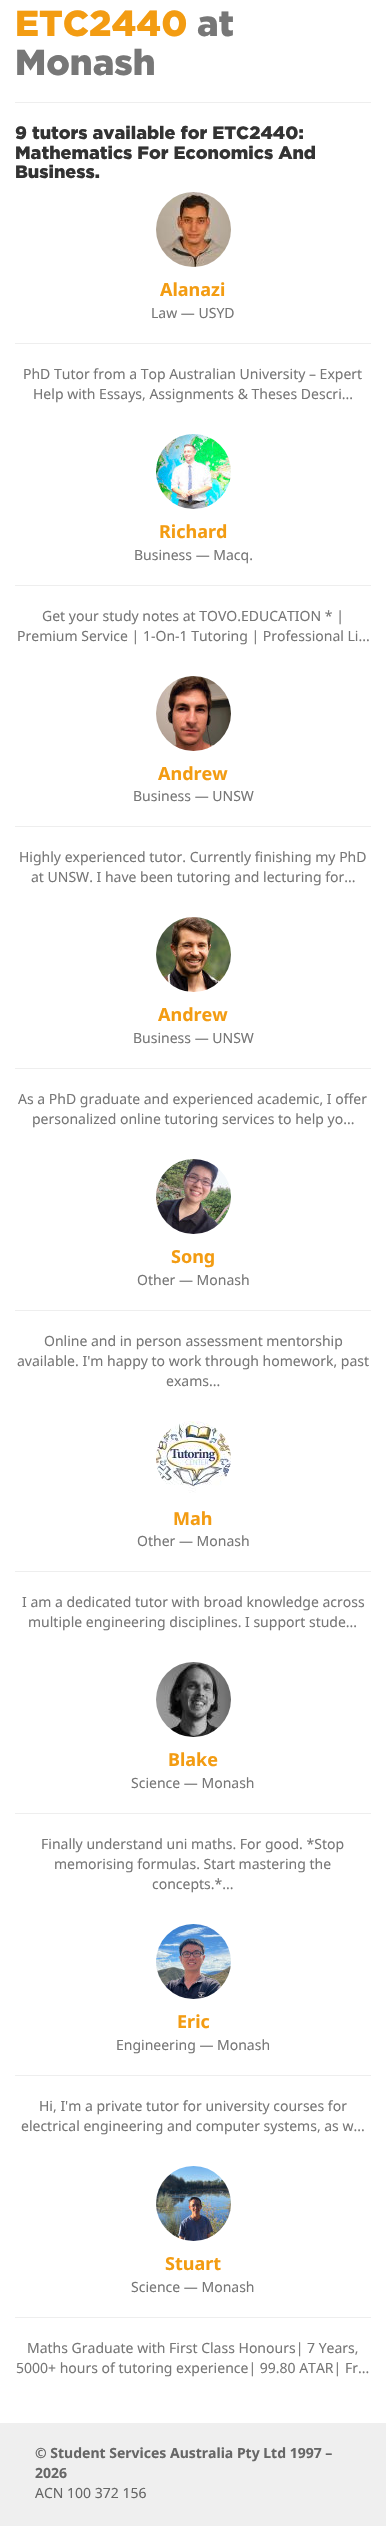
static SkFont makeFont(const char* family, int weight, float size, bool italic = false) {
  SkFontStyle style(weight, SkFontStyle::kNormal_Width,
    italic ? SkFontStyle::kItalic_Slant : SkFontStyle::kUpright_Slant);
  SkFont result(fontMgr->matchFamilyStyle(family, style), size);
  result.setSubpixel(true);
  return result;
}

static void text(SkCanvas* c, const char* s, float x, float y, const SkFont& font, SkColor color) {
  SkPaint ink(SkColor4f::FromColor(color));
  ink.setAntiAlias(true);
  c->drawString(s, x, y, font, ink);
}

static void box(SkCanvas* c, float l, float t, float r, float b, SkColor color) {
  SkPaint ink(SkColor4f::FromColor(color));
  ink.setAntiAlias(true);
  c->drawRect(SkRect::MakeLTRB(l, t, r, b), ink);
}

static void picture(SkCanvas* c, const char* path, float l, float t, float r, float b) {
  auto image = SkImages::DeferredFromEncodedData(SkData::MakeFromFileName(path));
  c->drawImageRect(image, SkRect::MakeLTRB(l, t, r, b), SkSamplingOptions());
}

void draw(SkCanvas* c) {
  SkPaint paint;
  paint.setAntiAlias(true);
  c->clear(0xffffffff);
  box(c, 15, 102, 371, 103, 0xffeeeeee);
  SkFont face1 = makeFont("Gotham", 900, 36);
  text(c, "ETC2440", 15, 36, face1, 0xfff39c12);
  text(c, "at", 197, 36, face1, 0xff777777);
  text(c, "Monash", 15, 75, face1, 0xff777777);
  SkFont face2 = makeFont("Gotham", 900, 18);
  text(c, "9 tutors available for ETC2440:", 15, 139, face2, 0xff333333);
  text(c, "Mathematics For Economics And", 15, 159, face2, 0xff333333);
  text(c, "Business.", 15, 178, face2, 0xff333333);
  picture(c, "img_01.png", 156, 192, 231, 267);
  SkFont face3 = makeFont("Noto Sans", 700, 18);
  text(c, "Alanazi", 160, 296, face3, 0xfff39c12);
  SkFont face4 = makeFont("Noto Sans", 400, 14);
  text(c, "Law — USYD", 151, 318, face4, 0xff777777);
  box(c, 15, 343, 371, 344, 0xffeeeeee);
  text(c, "PhD Tutor from a Top Australian University – Expert", 23, 379, face4, 0xff777777);
  text(c, "Help with Essays, Assignments & Theses Descri...", 33, 399, face4, 0xff777777);
  picture(c, "img_02.png", 156, 434, 231, 509);
  text(c, "Richard", 159, 538, face3, 0xfff39c12);
  text(c, "Business — Macq.", 134, 560, face4, 0xff777777);
  box(c, 15, 585, 371, 586, 0xffeeeeee);
  text(c, "Get your study notes at TOVO.EDUCATION * |", 42, 621, face4, 0xff777777);
  text(c, "Premium Service | 1-On-1 Tutoring | Professional Li...", 17, 641, face4, 0xff777777);
  picture(c, "img_03.png", 156, 676, 231, 751);
  text(c, "Andrew", 158, 780, face3, 0xfff39c12);
  text(c, "Business — UNSW", 133, 801, face4, 0xff777777);
  box(c, 15, 826, 371, 827, 0xffeeeeee);
  text(c, "Highly experienced tutor. Currently finishing my PhD", 19, 862, face4, 0xff777777);
  text(c, "at UNSW. I have been tutoring and lecturing for...", 31, 882, face4, 0xff777777);
  picture(c, "img_04.png", 156, 917, 231, 992);
  text(c, "Andrew", 158, 1021, face3, 0xfff39c12);
  text(c, "Business — UNSW", 133, 1043, face4, 0xff777777);
  box(c, 15, 1068, 371, 1069, 0xffeeeeee);
  text(c, "As a PhD graduate and experienced academic, I offer", 18, 1104, face4, 0xff777777);
  text(c, "personalized online tutoring services to help yo...", 32, 1124, face4, 0xff777777);
  picture(c, "img_05.png", 156, 1159, 231, 1234);
  text(c, "Song", 171, 1263, face3, 0xfff39c12);
  text(c, "Other — Monash", 137, 1285, face4, 0xff777777);
  box(c, 15, 1310, 371, 1311, 0xffeeeeee);
  text(c, "Online and in person assessment mentorship", 44, 1346, face4, 0xff777777);
  text(c, "available. I'm happy to work through homework, past", 17, 1366, face4, 0xff777777);
  text(c, "exams...", 166, 1386, face4, 0xff777777);
  picture(c, "img_06.png", 156, 1421, 231, 1493);
  text(c, "Mah", 173, 1525, face3, 0xfff39c12);
  text(c, "Other — Monash", 137, 1546, face4, 0xff777777);
  box(c, 15, 1571, 371, 1572, 0xffeeeeee);
  text(c, "I am a dedicated tutor with broad knowledge across", 22, 1607, face4, 0xff777777);
  text(c, "multiple engineering disciplines. I support stude...", 28, 1627, face4, 0xff777777);
  picture(c, "img_07.png", 156, 1662, 231, 1737);
  text(c, "Blake", 168, 1766, face3, 0xfff39c12);
  text(c, "Science — Monash", 131, 1788, face4, 0xff777777);
  box(c, 15, 1813, 371, 1814, 0xffeeeeee);
  text(c, "Finally understand uni maths. For good. *Stop", 41, 1849, face4, 0xff777777);
  text(c, "memorising formulas. Start mastering the", 54, 1869, face4, 0xff777777);
  text(c, "concepts.*...", 152, 1889, face4, 0xff777777);
  picture(c, "img_08.png", 156, 1924, 231, 1999);
  text(c, "Eric", 177, 2028, face3, 0xfff39c12);
  text(c, "Engineering — Monash", 116, 2050, face4, 0xff777777);
  box(c, 15, 2075, 371, 2076, 0xffeeeeee);
  text(c, "Hi, I'm a private tutor for university courses for", 39, 2111, face4, 0xff777777);
  text(c, "electrical engineering and computer systems, as w...", 21, 2131, face4, 0xff777777);
  picture(c, "img_09.png", 156, 2166, 231, 2241);
  text(c, "Stuart", 165, 2270, face3, 0xfff39c12);
  text(c, "Science — Monash", 131, 2292, face4, 0xff777777);
  box(c, 15, 2317, 371, 2318, 0xffeeeeee);
  text(c, "Maths Graduate with First Class Honours| 7 Years,", 27, 2353, face4, 0xff777777);
  text(c, "5000+ hours of tutoring experience| 99.80 ATAR| Fr...", 16, 2373, face4, 0xff777777);
  box(c, 0, 2423, 386, 2526, 0xffefefef);
  SkFont face5 = makeFont("Noto Sans", 700, 14);
  text(c, "© Student Services Australia Pty Ltd 1997 –", 35, 2458, face5, 0xff666666);
  text(c, "2026", 35, 2478, face5, 0xff666666);
  text(c, "ACN 100 372 156", 35, 2498, face4, 0xff666666);
}
